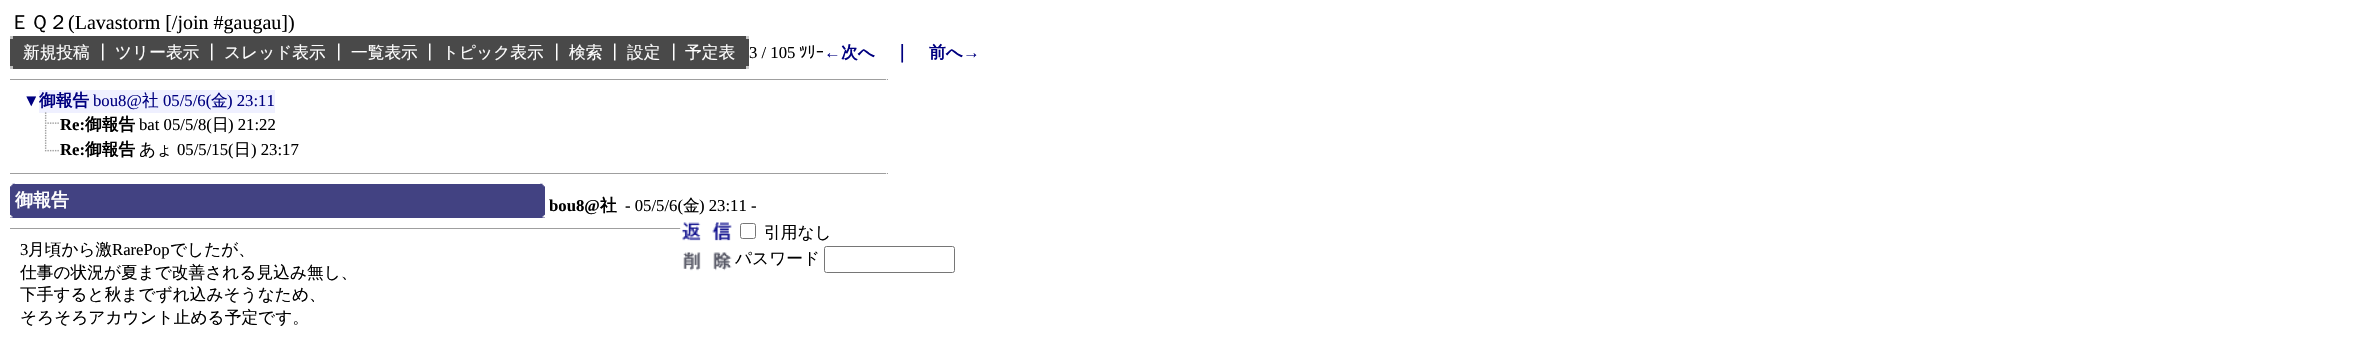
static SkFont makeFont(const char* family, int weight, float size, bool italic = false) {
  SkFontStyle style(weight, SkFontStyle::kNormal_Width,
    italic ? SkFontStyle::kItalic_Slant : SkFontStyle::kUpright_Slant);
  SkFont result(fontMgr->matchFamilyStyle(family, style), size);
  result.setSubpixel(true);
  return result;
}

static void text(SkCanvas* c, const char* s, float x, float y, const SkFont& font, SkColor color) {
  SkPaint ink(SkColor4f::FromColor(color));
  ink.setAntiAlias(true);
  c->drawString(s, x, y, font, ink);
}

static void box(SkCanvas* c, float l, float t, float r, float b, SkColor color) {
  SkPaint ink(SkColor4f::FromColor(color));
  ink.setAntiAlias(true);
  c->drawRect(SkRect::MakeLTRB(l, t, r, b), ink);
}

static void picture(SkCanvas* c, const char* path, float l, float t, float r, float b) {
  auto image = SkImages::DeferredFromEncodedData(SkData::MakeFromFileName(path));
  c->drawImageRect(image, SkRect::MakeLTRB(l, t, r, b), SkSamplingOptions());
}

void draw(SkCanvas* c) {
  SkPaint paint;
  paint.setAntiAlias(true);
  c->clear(0xffffffff);
  SkFont face1 = makeFont("WenQuanYi Zen Hei", 500, 20);
  text(c, "ＥＱ２", 10, 29, face1, 0xff000000);
  SkFont face2 = makeFont("Liberation Serif", 400, 20);
  text(c, "(Lavastorm [/join #gaugau])", 68, 29, face2, 0xff000000);
  box(c, 10, 36, 749, 69, 0xff494949);
  box(c, 10, 36, 13, 39, 0xffc0c0c0);
  box(c, 746, 36, 749, 39, 0xffcbcbcb);
  SkFont face3 = makeFont("WenQuanYi Zen Hei", 500, 16.7f);
  text(c, "新規投稿", 23, 58, face3, 0xffffffff);
  text(c, "┃", 94, 58, face3, 0xffffffff);
  text(c, "ツリー表示", 115, 58, face3, 0xffffffff);
  text(c, "┃", 203, 58, face3, 0xffffffff);
  text(c, "スレッド表示", 224, 58, face3, 0xffffffff);
  text(c, "┃", 330, 58, face3, 0xffffffff);
  text(c, "一覧表示", 351, 58, face3, 0xffffffff);
  text(c, "┃", 421, 58, face3, 0xffffffff);
  text(c, "トピック表示", 442, 58, face3, 0xffffffff);
  text(c, "┃", 548, 58, face3, 0xffffffff);
  text(c, "検索", 569, 58, face3, 0xffffffff);
  text(c, "┃", 606, 58, face3, 0xffffffff);
  text(c, "設定", 627, 58, face3, 0xffffffff);
  text(c, "┃", 665, 58, face3, 0xffffffff);
  text(c, "予定表", 685, 58, face3, 0xffffffff);
  box(c, 10, 66, 13, 69, 0xffc0c0c0);
  box(c, 746, 66, 749, 69, 0xffcbcbcb);
  SkFont face4 = makeFont("Liberation Serif", 400, 16.7f);
  text(c, "3 / 105", 749, 58, face4, 0xff000000);
  SkFont face5 = makeFont("IPAPGothic", 400, 16.7f);
  text(c, "ﾂﾘｰ", 799, 58, face5, 0xff000000);
  SkFont face6 = makeFont("Liberation Serif", 700, 16.7f);
  text(c, "←", 824, 58, face6, 0xff000080);
  SkFont face7 = makeFont("WenQuanYi Zen Hei", 700, 16.7f);
  text(c, "次へ", 841, 58, face7, 0xff000080);
  SkFont face8 = makeFont("WenQuanYi Zen Hei", 700, 18);
  text(c, "｜", 893, 58, face8, 0xff000080);
  text(c, "前へ", 929, 58, face7, 0xff000080);
  text(c, "→", 963, 58, face6, 0xff000080);
  box(c, 10, 79, 888, 80, 0xff9f9f9f);
  box(c, 886, 79, 887, 80, 0xffeeeeee);
  text(c, "▼", 23, 106, face4, 0xff000080);
  box(c, 39, 90, 275, 113, 0xffeff0ff);
  text(c, "御報告", 39, 106, face7, 0xff000080);
  text(c, "bou8@", 93, 106, face4, 0xff000080);
  text(c, "社", 142, 106, face3, 0xff000080);
  text(c, "05/5/6(", 163, 106, face4, 0xff000080);
  text(c, "金", 211, 106, face3, 0xff000080);
  text(c, ") 23:11", 227, 106, face4, 0xff000080);
  picture(c, "img_01.png", 44, 112, 59, 137);
  text(c, "Re:", 60, 130, face6, 0xff000000);
  text(c, "御報告", 85, 130, face7, 0xff000000);
  text(c, "bat 05/5/8(", 139, 130, face4, 0xff000000);
  text(c, "日", 212, 130, face3, 0xff000000);
  text(c, ") 21:22", 228, 130, face4, 0xff000000);
  picture(c, "img_02.png", 44, 137, 59, 152);
  text(c, "Re:", 60, 155, face6, 0xff000000);
  text(c, "御報告", 85, 155, face7, 0xff000000);
  text(c, "あょ", 139, 155, face3, 0xff000000);
  text(c, "05/5/15(", 177, 155, face4, 0xff000000);
  text(c, "日", 234, 155, face3, 0xff000000);
  text(c, ") 23:17", 251, 155, face4, 0xff000000);
  box(c, 10, 173, 888, 174, 0xff9f9f9f);
  box(c, 886, 173, 887, 174, 0xffeeeeee);
  box(c, 10, 184, 545, 218, 0xff424282);
  picture(c, "img_03.png", 10, 183, 15, 187);
  picture(c, "img_04.png", 540, 183, 545, 187);
  text(c, "御報告", 15, 206, face8, 0xffffffff);
  picture(c, "img_05.png", 10, 214, 13, 218);
  picture(c, "img_06.png", 542, 214, 545, 218);
  text(c, "bou8@", 549, 211, face6, 0xff000000);
  text(c, "社", 600, 211, face7, 0xff000000);
  text(c, "- 05/5/6(", 625, 211, face4, 0xff000000);
  text(c, "金", 683, 211, face3, 0xff000000);
  text(c, ") 23:11 -", 699, 211, face4, 0xff000000);
  text(c, "3", 20, 255, face4, 0xff000000);
  text(c, "月頃から激", 28, 255, face3, 0xff000000);
  text(c, "RarePop", 112, 255, face4, 0xff000000);
  text(c, "でしたが、", 170, 255, face3, 0xff000000);
  text(c, "仕事の状況が夏まで改善される見込み無し、", 20, 278, face3, 0xff000000);
  text(c, "下手すると秋までずれ込みそうなため、", 20, 300, face3, 0xff000000);
  text(c, "そろそろアカウント止める予定です。", 20, 323, face3, 0xff000000);
  box(c, 10, 228, 681, 229, 0xff9f9f9f);
  box(c, 680, 228, 681, 229, 0xffeeeeee);
  picture(c, "img_07.png", 682, 222, 732, 241);
  paint.setStyle(SkPaint::kStroke_Style);
  paint.setStrokeWidth(1);
  paint.setColor(0xff767676);
  c->drawRoundRect(SkRect::MakeLTRB(740.5f, 223.5f, 755.5f, 238.5f), 2, 2, paint);
  text(c, "引用なし", 764, 238, face3, 0xff000000);
  picture(c, "img_08.png", 683, 252, 732, 271);
  text(c, "パスワード", 735, 264, face3, 0xff000000);
  c->drawRoundRect(SkRect::MakeLTRB(824.5f, 246.5f, 954.5f, 272.5f), 2, 2, paint);
}
